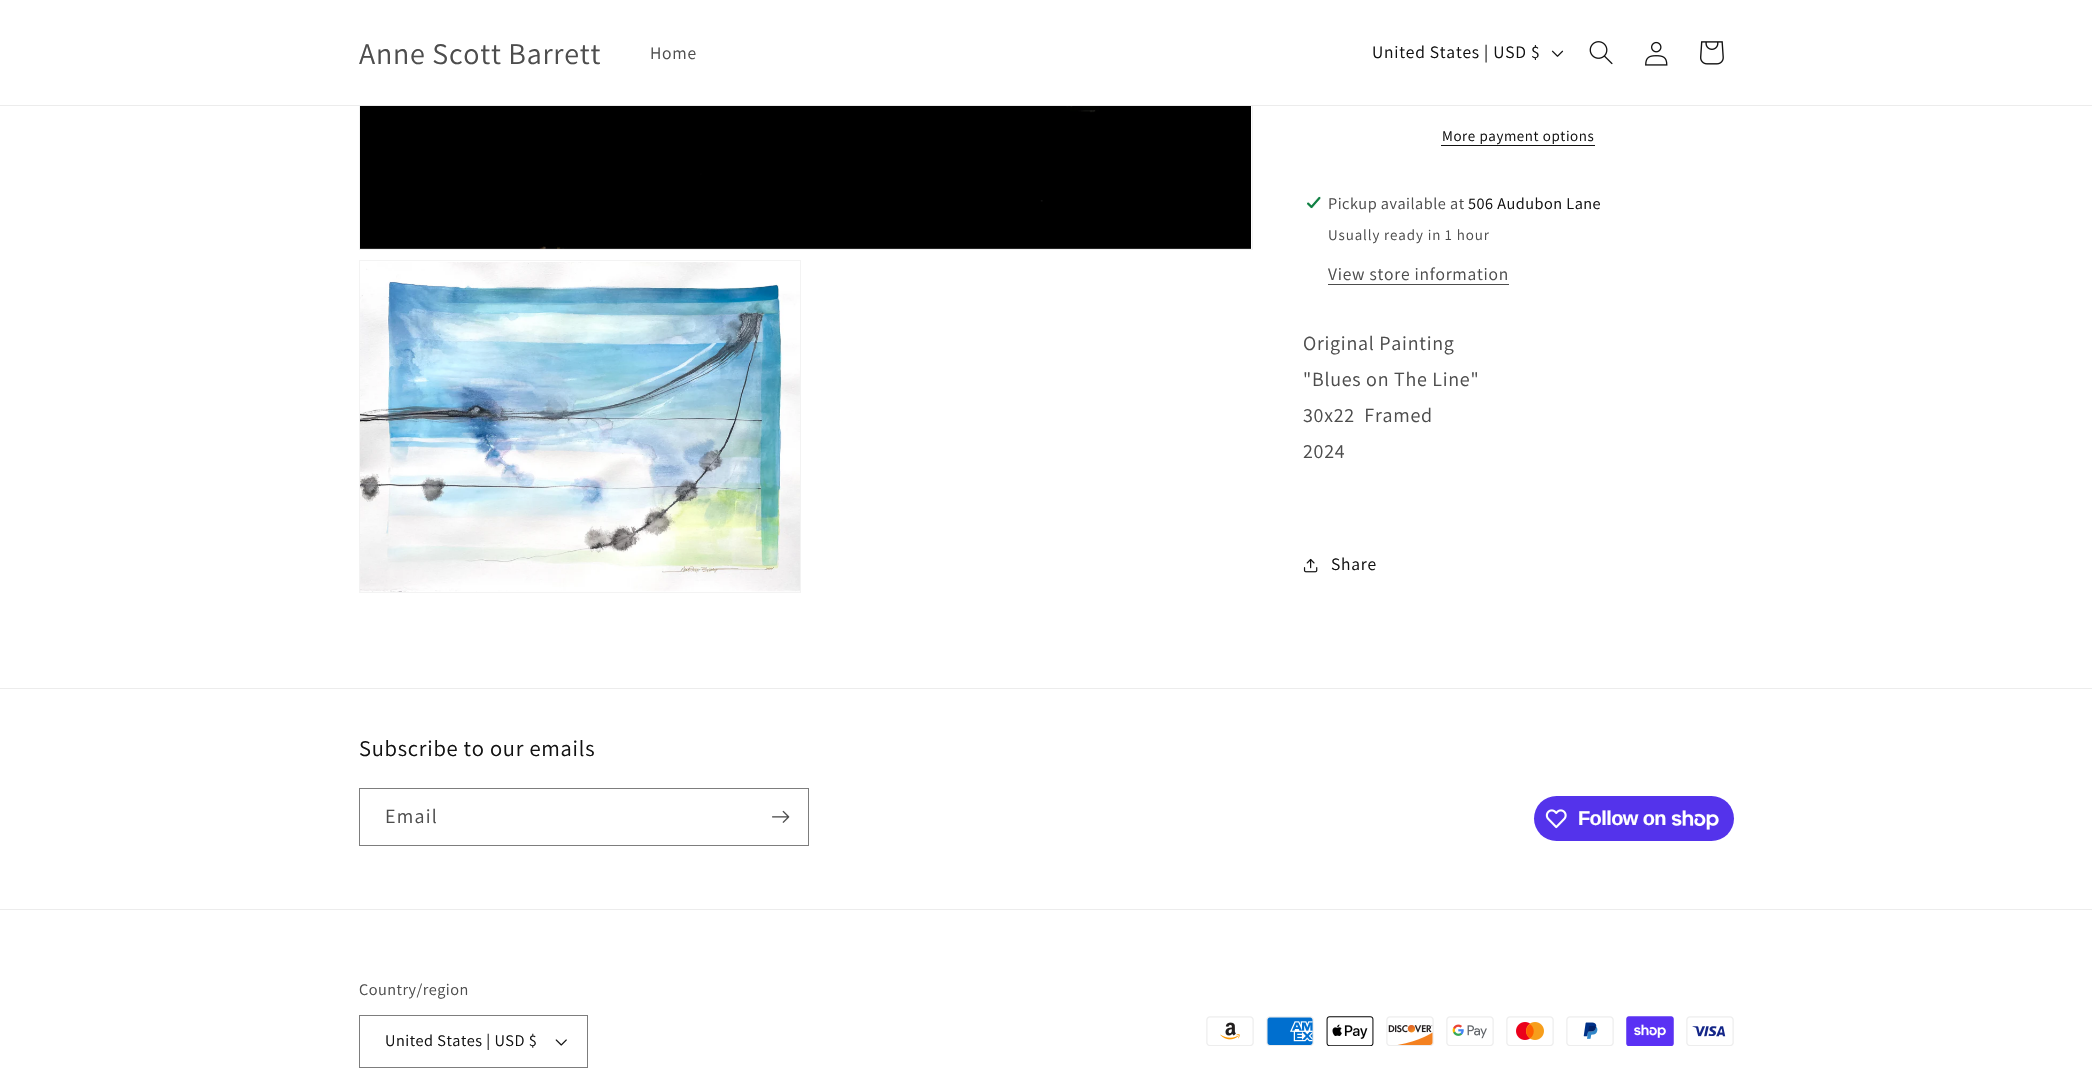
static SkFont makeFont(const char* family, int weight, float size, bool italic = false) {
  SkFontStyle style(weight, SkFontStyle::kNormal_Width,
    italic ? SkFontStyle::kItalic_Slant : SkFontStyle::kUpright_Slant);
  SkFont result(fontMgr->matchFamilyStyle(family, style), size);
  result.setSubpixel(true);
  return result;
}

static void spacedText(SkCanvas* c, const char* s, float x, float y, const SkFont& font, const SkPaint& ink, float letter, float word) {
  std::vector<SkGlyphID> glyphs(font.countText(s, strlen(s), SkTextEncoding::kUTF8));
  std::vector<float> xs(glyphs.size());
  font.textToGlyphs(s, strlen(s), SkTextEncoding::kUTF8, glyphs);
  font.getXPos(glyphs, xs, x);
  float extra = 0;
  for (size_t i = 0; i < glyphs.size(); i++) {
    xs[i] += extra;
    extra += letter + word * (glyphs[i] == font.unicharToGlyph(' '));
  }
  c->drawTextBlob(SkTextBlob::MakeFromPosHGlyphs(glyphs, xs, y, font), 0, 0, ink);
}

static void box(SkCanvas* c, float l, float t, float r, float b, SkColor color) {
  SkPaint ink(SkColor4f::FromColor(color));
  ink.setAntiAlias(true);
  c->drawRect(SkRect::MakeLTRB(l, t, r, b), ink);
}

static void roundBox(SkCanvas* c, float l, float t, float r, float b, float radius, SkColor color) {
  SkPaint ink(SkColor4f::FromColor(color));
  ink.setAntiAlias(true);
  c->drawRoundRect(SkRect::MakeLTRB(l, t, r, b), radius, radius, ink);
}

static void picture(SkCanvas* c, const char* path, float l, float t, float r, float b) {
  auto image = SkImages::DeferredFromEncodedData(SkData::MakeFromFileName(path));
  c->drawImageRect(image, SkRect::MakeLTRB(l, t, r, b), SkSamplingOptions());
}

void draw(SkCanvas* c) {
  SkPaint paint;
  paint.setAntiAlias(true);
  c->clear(0xffffffff);
  paint.setStyle(SkPaint::kStroke_Style);
  paint.setStrokeWidth(1);
  paint.setColor(0xfff3f3f3);
  c->drawRect(SkRect::MakeLTRB(359.5f, -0.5f, 1252.5f, 249.5f), paint);
  box(c, 359, 0, 1253, 105, 0xffffffff);
  box(c, 0, 105, 2092, 106, 0xffececec);
  SkFont face1 = makeFont("Assistant", 400, 30);
  paint.setStyle(SkPaint::kFill_Style);
  paint.setColor(0xff4d4d4d);
  spacedText(c, "Anne Scott Barrett", 359, 64, face1, paint, 0.75f, 0);
  SkFont face2 = makeFont("Assistant", 400, 17.5f);
  spacedText(c, "Home", 650, 59, face2, paint, 0.75f, 0);
  paint.setColor(0xff121212);
  spacedText(c, "United States | USD $", 1372, 58, face2, paint, 0.75f, 0);
  picture(c, "img_01.png", 1551, 50, 1564, 57);
  picture(c, "img_02.png", 1589, 41, 1613, 65);
  picture(c, "img_03.png", 1645, 41, 1668, 66);
  picture(c, "img_04.png", 1700, 41, 1724, 65);
  picture(c, "img_05.png", 360, 106, 1251, 249);
  paint.setStyle(SkPaint::kStroke_Style);
  paint.setColor(0xfff3f3f3);
  c->drawRect(SkRect::MakeLTRB(359.5f, 260.5f, 800.5f, 592.5f), paint);
  picture(c, "img_06.png", 360, 262, 800, 592);
  SkFont face3 = makeFont("Assistant", 400, 15);
  paint.setStyle(SkPaint::kFill_Style);
  paint.setColor(0xff121212);
  spacedText(c, "More payment options", 1442, 141, face3, paint, 0.6f, 0);
  box(c, 1441, 145, 1595, 146, 0xff121212);
  picture(c, "img_07.png", 1306, 196, 1321, 209);
  SkFont face4 = makeFont("Assistant", 400, 16.25f);
  paint.setColor(0xff4d4d4d);
  spacedText(c, "Pickup available at", 1328, 209, face4, paint, 0.5f, 0);
  paint.setColor(0xff121212);
  spacedText(c, "506 Audubon Lane", 1468, 209, face4, paint, 0.5f, 0);
  paint.setColor(0xff4d4d4d);
  spacedText(c, "Usually ready in 1 hour", 1328, 240, face3, paint, 0.9f, 0);
  spacedText(c, "View store information", 1328, 280, face2, paint, 0.75f, 0);
  box(c, 1328, 284, 1509, 285, 0xff4d4d4d);
  SkFont face5 = makeFont("Assistant", 400, 20);
  spacedText(c, "Original Painting", 1303, 350, face5, paint, 0.75f, 0);
  spacedText(c, "\"Blues on The Line\"", 1303, 386, face5, paint, 0.75f, 0);
  spacedText(c, "30x22  Framed", 1303, 422, face5, paint, 0.75f, 0);
  spacedText(c, "2024", 1303, 458, face5, paint, 0.75f, 0);
  picture(c, "img_08.png", 1303, 558, 1318, 573);
  paint.setColor(0xff121212);
  spacedText(c, "Share", 1331, 570, face2, paint, 0.75f, 0);
  box(c, 0, 688, 2092, 689, 0xffececec);
  SkFont face6 = makeFont("Assistant", 400, 22.5f);
  spacedText(c, "Subscribe to our emails", 359, 756, face6, paint, 0.75f, 0);
  paint.setStyle(SkPaint::kStroke_Style);
  paint.setColor(0xff7d7d7d);
  c->drawRect(SkRect::MakeLTRB(359.5f, 788.5f, 808.5f, 845.5f), paint);
  paint.setStyle(SkPaint::kFill_Style);
  paint.setColor(0xff4d4d4d);
  spacedText(c, "Email", 385, 823, face5, paint, 1.25f, 0);
  picture(c, "img_09.png", 772, 810, 790, 823);
  roundBox(c, 1534, 796, 1734, 841, 22.5f, 0xff5433eb);
  picture(c, "img_10.png", 1545, 809, 1567, 829);
  SkFont face7 = makeFont("Liberation Sans", 700, 20);
  paint.setColor(0xffffffff);
  spacedText(c, "Follow on", 1578, 825, face7, paint, -0.6f, 0);
  picture(c, "img_11.png", 1671, 810, 1719, 830);
  box(c, 0, 909, 2092, 910, 0xffececec);
  paint.setColor(0xff4d4d4d);
  spacedText(c, "Country/region", 359, 995, face4, paint, 0.5f, 0);
  picture(c, "img_12.png", 555, 1039, 567, 1046);
  paint.setStyle(SkPaint::kStroke_Style);
  paint.setColor(0xff7d7d7d);
  c->drawRect(SkRect::MakeLTRB(359.5f, 1015.5f, 587.5f, 1067.5f), paint);
  paint.setStyle(SkPaint::kFill_Style);
  paint.setColor(0xff121212);
  spacedText(c, "United States | USD $", 385, 1046, face4, paint, 0.5f, 0);
  picture(c, "img_13.png", 1206, 1016, 1254, 1046);
  picture(c, "img_14.png", 1266, 1016, 1314, 1046);
  picture(c, "img_15.png", 1326, 1016, 1374, 1046);
  picture(c, "img_16.png", 1386, 1016, 1434, 1046);
  picture(c, "img_17.png", 1446, 1016, 1494, 1046);
  picture(c, "img_18.png", 1506, 1016, 1554, 1046);
  picture(c, "img_19.png", 1566, 1016, 1614, 1046);
  picture(c, "img_20.png", 1626, 1016, 1674, 1046);
  picture(c, "img_21.png", 1686, 1016, 1734, 1046);
}
